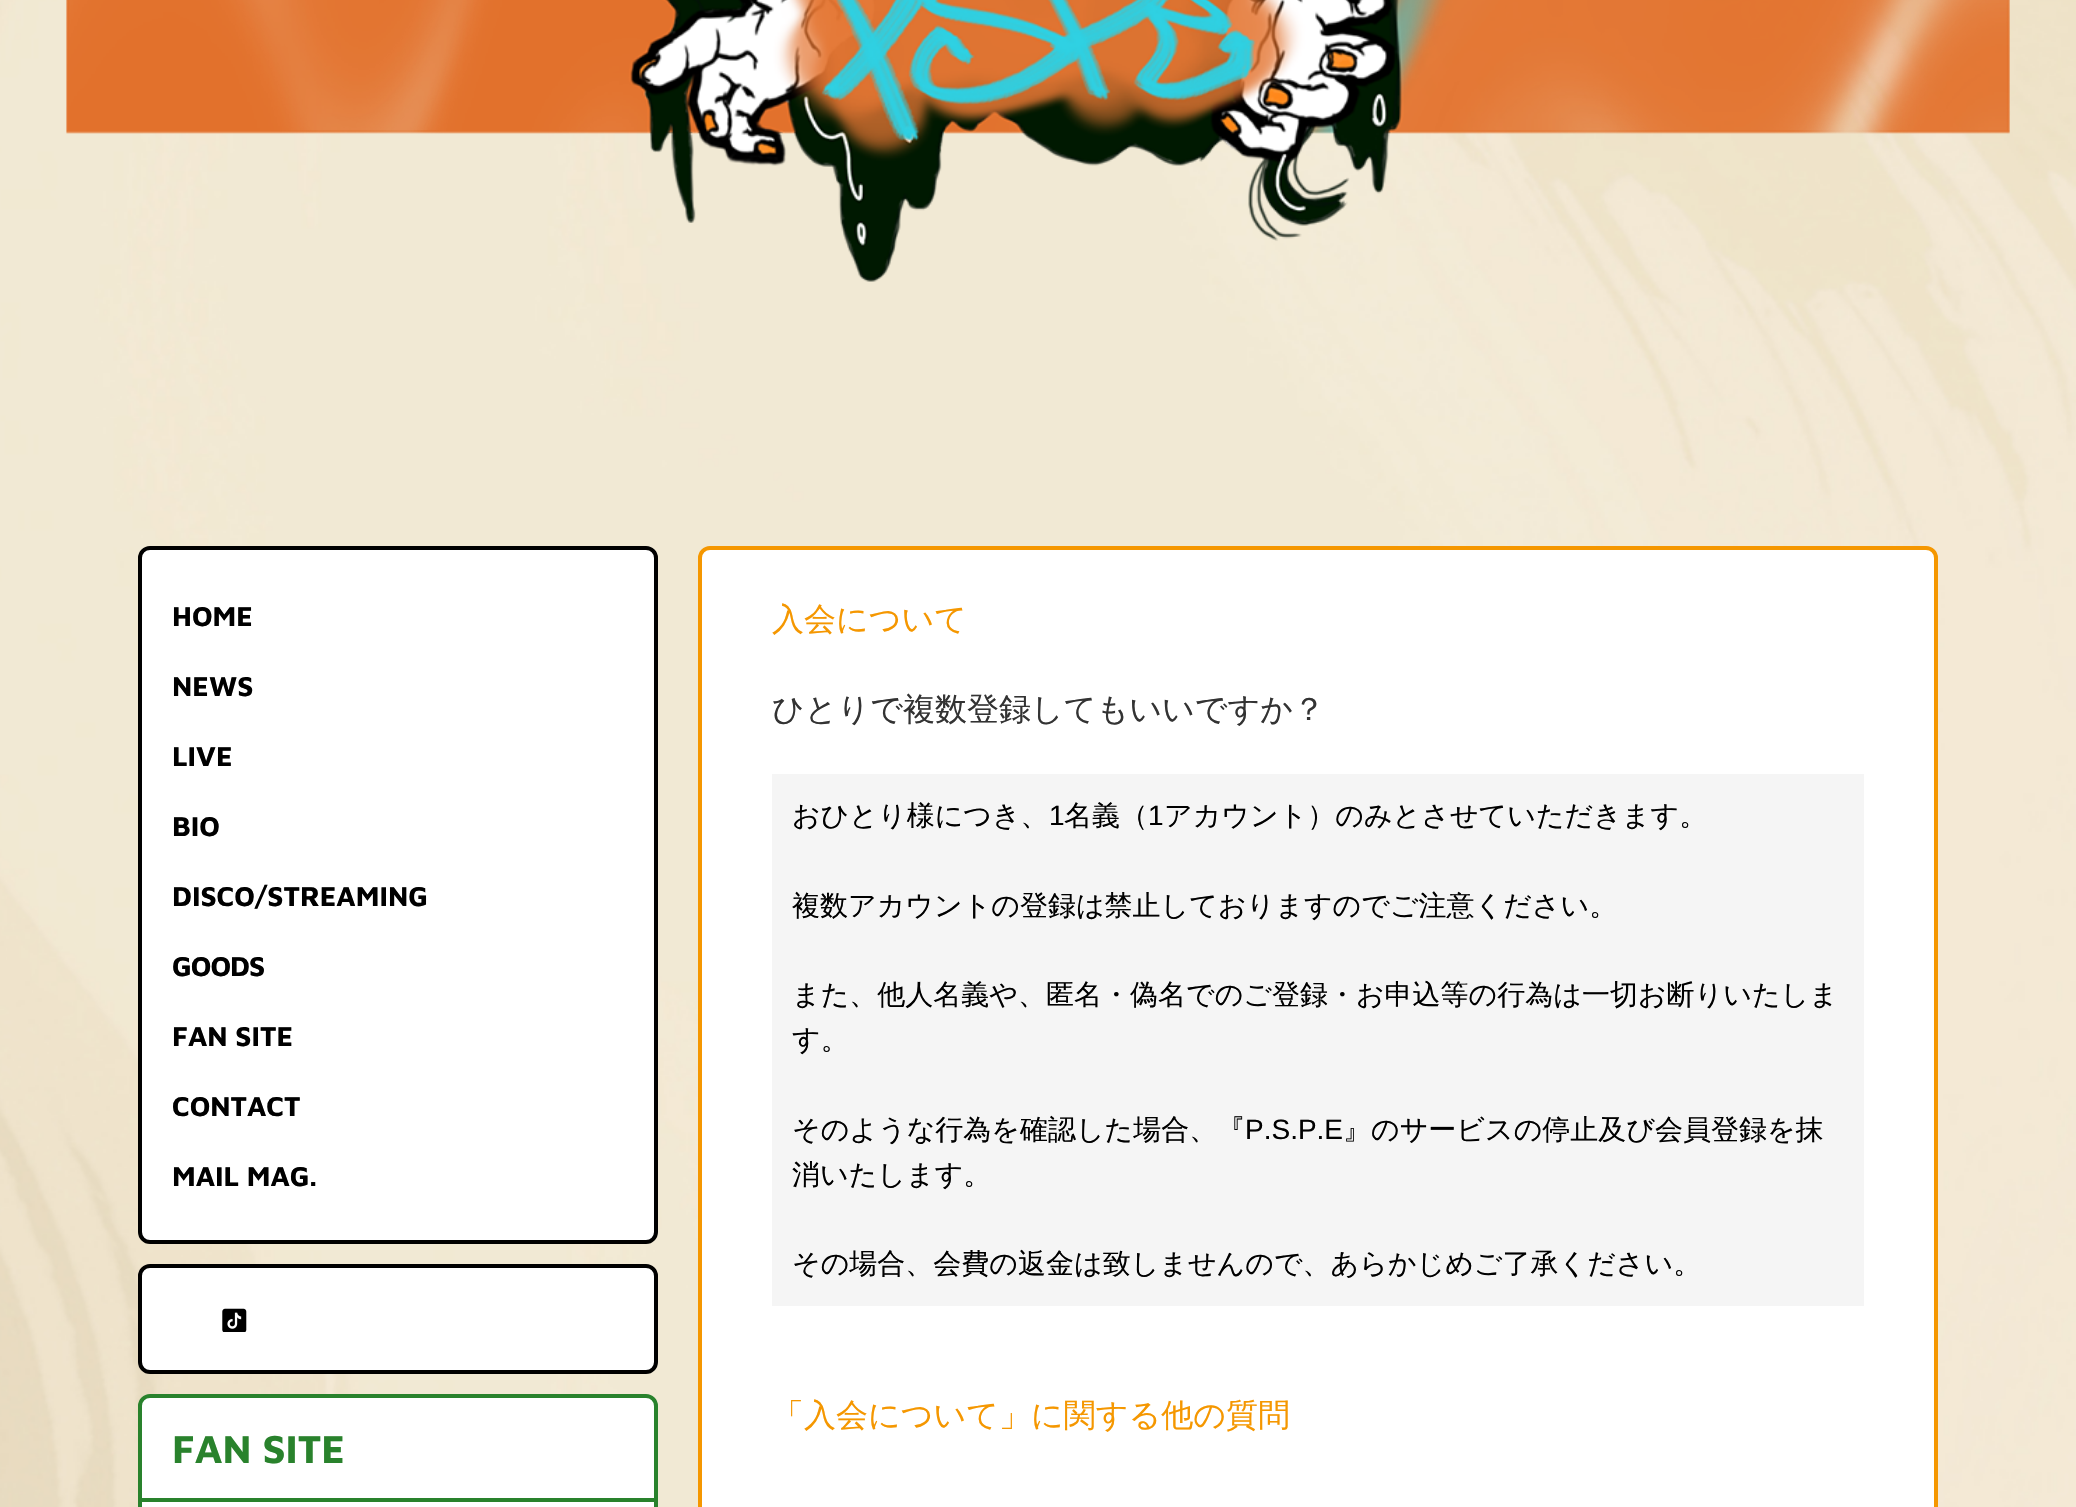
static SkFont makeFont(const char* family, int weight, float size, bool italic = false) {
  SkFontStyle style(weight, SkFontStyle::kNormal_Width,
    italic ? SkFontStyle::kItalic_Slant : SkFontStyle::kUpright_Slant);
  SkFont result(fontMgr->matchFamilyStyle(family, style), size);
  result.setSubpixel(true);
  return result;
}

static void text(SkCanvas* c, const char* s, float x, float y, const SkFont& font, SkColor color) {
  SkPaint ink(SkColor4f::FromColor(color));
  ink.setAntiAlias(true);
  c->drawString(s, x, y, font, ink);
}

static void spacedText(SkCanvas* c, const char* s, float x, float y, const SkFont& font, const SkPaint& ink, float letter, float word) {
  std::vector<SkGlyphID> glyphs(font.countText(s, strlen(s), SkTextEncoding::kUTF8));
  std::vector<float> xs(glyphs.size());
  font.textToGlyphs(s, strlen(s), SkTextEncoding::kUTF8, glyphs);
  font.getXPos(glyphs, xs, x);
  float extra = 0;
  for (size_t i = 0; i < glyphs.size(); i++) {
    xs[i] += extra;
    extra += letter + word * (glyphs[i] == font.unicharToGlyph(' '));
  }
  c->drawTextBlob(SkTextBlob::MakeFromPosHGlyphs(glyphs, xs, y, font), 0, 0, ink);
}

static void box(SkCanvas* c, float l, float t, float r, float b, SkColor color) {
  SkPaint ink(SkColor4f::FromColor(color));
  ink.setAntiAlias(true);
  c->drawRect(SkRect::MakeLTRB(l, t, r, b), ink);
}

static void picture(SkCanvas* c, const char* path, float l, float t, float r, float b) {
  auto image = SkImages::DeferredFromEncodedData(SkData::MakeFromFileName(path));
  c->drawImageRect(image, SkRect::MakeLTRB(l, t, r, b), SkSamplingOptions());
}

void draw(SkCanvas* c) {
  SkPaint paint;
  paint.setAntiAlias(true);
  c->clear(0xffffffff);
  picture(c, "img_01.png", 0, 0, 2076, 1507);
  picture(c, "img_02.png", 66, 0, 2010, 282);
  paint.setColor(0xffffffff);
  c->drawRoundRect(SkRect::MakeLTRB(140, 548, 656, 1242), 10, 10, paint);
  paint.setStyle(SkPaint::kStroke_Style);
  paint.setStrokeWidth(4);
  paint.setColor(0xff000000);
  c->drawRoundRect(SkRect::MakeLTRB(140, 548, 656, 1242), 10, 10, paint);
  SkFont face1 = makeFont("Maven Pro", 700, 28);
  text(c, "HOME", 172, 626, face1, 0xff000000);
  text(c, "NEWS", 172, 696, face1, 0xff000000);
  text(c, "LIVE", 172, 766, face1, 0xff000000);
  text(c, "BIO", 172, 836, face1, 0xff000000);
  text(c, "DISCO/STREAMING", 172, 906, face1, 0xff000000);
  paint.setStyle(SkPaint::kFill_Style);
  spacedText(c, "GOODS", 172, 976, face1, paint, -1, 0);
  text(c, "FAN SITE", 172, 1046, face1, 0xff000000);
  text(c, "CONTACT", 172, 1116, face1, 0xff000000);
  text(c, "MAIL MAG.", 172, 1186, face1, 0xff000000);
  paint.setColor(0xffffffff);
  c->drawRoundRect(SkRect::MakeLTRB(140, 1266, 656, 1372), 10, 10, paint);
  paint.setStyle(SkPaint::kStroke_Style);
  paint.setColor(0xff000000);
  c->drawRoundRect(SkRect::MakeLTRB(140, 1266, 656, 1372), 10, 10, paint);
  picture(c, "img_03.png", 222, 1308, 247, 1332);
  paint.setStyle(SkPaint::kFill_Style);
  paint.setColor(0xffffffff);
  c->drawRoundRect(SkRect::MakeLTRB(700, 548, 1936, 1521), 10, 10, paint);
  paint.setStyle(SkPaint::kStroke_Style);
  paint.setColor(0xfff59700);
  c->drawRoundRect(SkRect::MakeLTRB(700, 548, 1936, 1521), 10, 10, paint);
  SkFont face2 = makeFont("WenQuanYi Zen Hei", 500, 32);
  text(c, "入会について", 772, 630, face2, 0xfff59700);
  text(c, "ひとりで複数登録してもいいですか？", 772, 720, face2, 0xff333333);
  box(c, 772, 774, 1864, 1306, 0xfff5f5f5);
  SkFont face3 = makeFont("WenQuanYi Zen Hei", 500, 28);
  text(c, "おひとり様につき、", 792, 825, face3, 0xff000000);
  SkFont face4 = makeFont("Liberation Sans", 400, 28);
  text(c, "1", 1049, 825, face4, 0xff000000);
  text(c, "名義（", 1064, 825, face3, 0xff000000);
  text(c, "1", 1148, 825, face4, 0xff000000);
  text(c, "アカウント）のみとさせていただきます。", 1164, 825, face3, 0xff000000);
  text(c, "複数アカウントの登録は禁止しておりますのでご注意ください。", 792, 915, face3, 0xff000000);
  text(c, "また、他人名義や、匿名・偽名でのご登録・お申込等の行為は一切お断りいたしま", 792, 1004, face3, 0xff000000);
  text(c, "す。", 792, 1049, face3, 0xff000000);
  text(c, "そのような行為を確認した場合、『", 792, 1139, face3, 0xff000000);
  text(c, "P.S.P.E", 1245, 1139, face4, 0xff000000);
  text(c, "』のサービスの停止及び会員登録を抹", 1343, 1139, face3, 0xff000000);
  text(c, "消いたします。", 792, 1184, face3, 0xff000000);
  text(c, "その場合、会費の返金は致しませんので、あらかじめご了承ください。", 792, 1273, face3, 0xff000000);
  text(c, "「入会について」に関する他の質問", 772, 1426, face2, 0xfff59700);
  paint.setStyle(SkPaint::kFill_Style);
  paint.setColor(0xffffffff);
  c->drawRoundRect(SkRect::MakeLTRB(140, 1396, 656, 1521), 10, 10, paint);
  paint.setStyle(SkPaint::kStroke_Style);
  paint.setColor(0xff29822c);
  c->drawRoundRect(SkRect::MakeLTRB(140, 1396, 656, 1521), 10, 10, paint);
  box(c, 142, 1498, 654, 1502, 0xff29822c);
  SkFont face5 = makeFont("Maven Pro", 700, 40);
  text(c, "FAN SITE", 172, 1463, face5, 0xff29822c);
}
